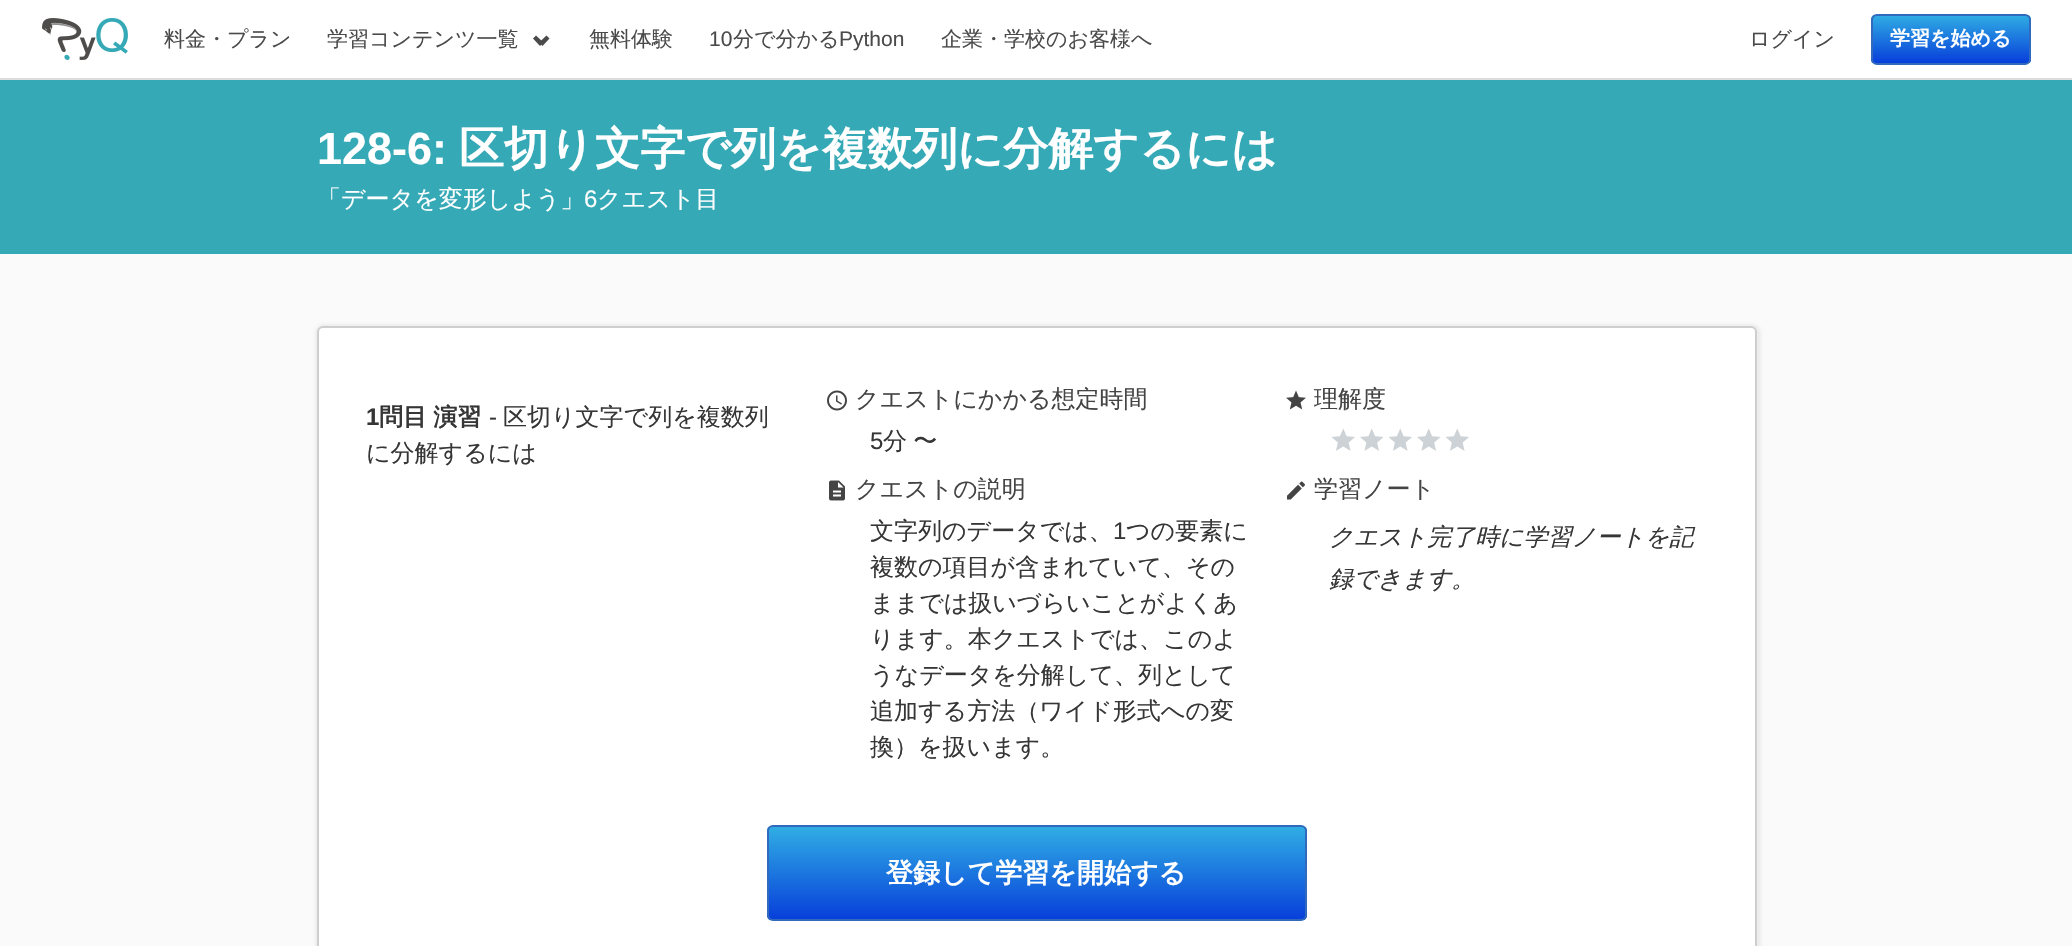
static SkFont makeFont(const char* family, int weight, float size, bool italic = false) {
  SkFontStyle style(weight, SkFontStyle::kNormal_Width,
    italic ? SkFontStyle::kItalic_Slant : SkFontStyle::kUpright_Slant);
  SkFont result(fontMgr->matchFamilyStyle(family, style), size);
  result.setSubpixel(true);
  return result;
}

static void text(SkCanvas* c, const char* s, float x, float y, const SkFont& font, SkColor color) {
  SkPaint ink(SkColor4f::FromColor(color));
  ink.setAntiAlias(true);
  c->drawString(s, x, y, font, ink);
}

static void spacedText(SkCanvas* c, const char* s, float x, float y, const SkFont& font, const SkPaint& ink, float letter, float word) {
  std::vector<SkGlyphID> glyphs(font.countText(s, strlen(s), SkTextEncoding::kUTF8));
  std::vector<float> xs(glyphs.size());
  font.textToGlyphs(s, strlen(s), SkTextEncoding::kUTF8, glyphs);
  font.getXPos(glyphs, xs, x);
  float extra = 0;
  for (size_t i = 0; i < glyphs.size(); i++) {
    xs[i] += extra;
    extra += letter + word * (glyphs[i] == font.unicharToGlyph(' '));
  }
  c->drawTextBlob(SkTextBlob::MakeFromPosHGlyphs(glyphs, xs, y, font), 0, 0, ink);
}

static void box(SkCanvas* c, float l, float t, float r, float b, SkColor color) {
  SkPaint ink(SkColor4f::FromColor(color));
  ink.setAntiAlias(true);
  c->drawRect(SkRect::MakeLTRB(l, t, r, b), ink);
}

static void picture(SkCanvas* c, const char* path, float l, float t, float r, float b) {
  auto image = SkImages::DeferredFromEncodedData(SkData::MakeFromFileName(path));
  c->drawImageRect(image, SkRect::MakeLTRB(l, t, r, b), SkSamplingOptions());
}

void draw(SkCanvas* c) {
  SkPaint paint;
  paint.setAntiAlias(true);
  c->clear(0xfffafafa);
  box(c, 0, 0, 2072, 78, 0xffffffff);
  box(c, 0, 78, 2072, 80, 0xffdddddd);
  picture(c, "img_01.png", 42, 18, 128, 60);
  SkFont face1 = makeFont("WenQuanYi Zen Hei", 500, 21);
  text(c, "料金・プラン", 164, 46, face1, 0xff4a4a4a);
  text(c, "学習コンテンツ一覧", 327, 46, face1, 0xff4a4a4a);
  paint.setColor(0xff4a4a4a);
  c->drawPath(SkPathBuilder().moveTo(539, 42.5f).lineTo(546.5f, 35.5f).lineTo(549.5f, 38.5f).lineTo(542.5f, 46).close().detach(), paint);
  c->drawPath(SkPathBuilder().moveTo(533, 38.5f).lineTo(536, 35.5f).lineTo(543.5f, 42.5f).lineTo(540, 46).close().detach(), paint);
  text(c, "無料体験", 589, 46, face1, 0xff4a4a4a);
  SkFont face2 = makeFont("Liberation Sans", 400, 21);
  text(c, "10", 709, 46, face2, 0xff4a4a4a);
  text(c, "分で分かる", 733, 46, face1, 0xff4a4a4a);
  text(c, "Python", 839, 46, face2, 0xff4a4a4a);
  text(c, "企業・学校のお客様へ", 941, 46, face1, 0xff4a4a4a);
  text(c, "ログイン", 1749, 46, face1, 0xff4a4a4a);
  c->save();
  c->clipPath(SkPathBuilder().moveTo(1877, 14).lineTo(2025, 14).cubicTo(2028.5f, 14, 2031, 16.5f, 2031, 20).lineTo(2031, 59).cubicTo(2031, 62.5f, 2028.5f, 65, 2025, 65).lineTo(1877, 65).cubicTo(1873.5f, 65, 1871, 62.5f, 1871, 59).lineTo(1871, 20).cubicTo(1871, 16.5f, 1873.5f, 14, 1877, 14).close().detach(), true);
  {
    const SkColor colors[] = {0xff30ade4, 0xff073eda};
    const float stops[] = {0, 1};
    const SkPoint ends[] = {{1951, 15}, {1951, 63}};
    paint.setShader(SkGradientShader::MakeLinear(ends, colors, stops, 2, SkTileMode::kClamp));
    paint.setAlpha(255);
  }
  c->drawRect(SkRect::MakeLTRB(1871, 15, 2031, 63), paint);
  c->restore();
  paint.setStyle(SkPaint::kStroke_Style);
  paint.setStrokeWidth(2);
  paint.setShader(nullptr);
  paint.setColor(0xff3169bd);
  c->drawRoundRect(SkRect::MakeLTRB(1872, 15, 2030, 64), 5, 5, paint);
  SkFont face3 = makeFont("WenQuanYi Zen Hei", 700, 20);
  text(c, "学習を始める", 1890, 45, face3, 0xffffffff);
  box(c, 0, 80, 2072, 254, 0xff36a9b7);
  SkFont face4 = makeFont("Liberation Sans", 700, 45);
  text(c, "128-6:", 317, 164, face4, 0xffffffff);
  SkFont face5 = makeFont("WenQuanYi Zen Hei", 700, 45);
  text(c, "区切り文字で列を複数列に分解するには", 459, 164, face5, 0xffffffff);
  SkFont face6 = makeFont("WenQuanYi Zen Hei", 500, 24);
  text(c, "「データを変形しよう」", 317, 207, face6, 0xffffffff);
  SkFont face7 = makeFont("Liberation Sans", 400, 24);
  text(c, "6", 584, 207, face7, 0xffffffff);
  text(c, "クエスト目", 597, 207, face6, 0xffffffff);
  paint.setStyle(SkPaint::kFill_Style);
  paint.setColor(0x0d000000);
  paint.setMaskFilter(SkMaskFilter::MakeBlur(kNormal_SkBlurStyle, 1.5f));
  c->drawRoundRect(SkRect::MakeLTRB(315, 324, 1761, 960), 9, 9, paint);
  paint.setMaskFilter(nullptr);
  paint.setColor(0xffffffff);
  c->drawRoundRect(SkRect::MakeLTRB(318, 327, 1756, 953), 5, 5, paint);
  paint.setStyle(SkPaint::kStroke_Style);
  paint.setColor(0xffcecece);
  c->drawRoundRect(SkRect::MakeLTRB(318, 327, 1756, 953), 5, 5, paint);
  SkFont face8 = makeFont("Liberation Sans", 700, 24);
  text(c, "1", 366, 425, face8, 0xff363636);
  SkFont face9 = makeFont("WenQuanYi Zen Hei", 700, 24);
  paint.setStyle(SkPaint::kFill_Style);
  paint.setColor(0xff363636);
  spacedText(c, "問目 演習", 379, 425, face9, paint, 0, -1);
  text(c, "-", 489, 425, face7, 0xff363636);
  text(c, "区切り文字で列を複数列", 503, 425, face6, 0xff363636);
  text(c, "に分解するには", 366, 461, face6, 0xff363636);
  picture(c, "img_02.png", 827, 390, 847, 411);
  text(c, "クエストにかかる想定時間", 855, 407, face6, 0xff444444);
  text(c, "5", 870, 449, face7, 0xff363636);
  spacedText(c, "分 〜", 883, 449, face6, paint, 0, -1);
  picture(c, "img_03.png", 829, 480, 845, 501);
  text(c, "クエストの説明", 855, 497, face6, 0xff444444);
  text(c, "文字列のデータでは、", 870, 539, face6, 0xff363636);
  text(c, "1", 1113, 539, face7, 0xff363636);
  text(c, "つの要素に", 1126, 539, face6, 0xff363636);
  text(c, "複数の項目が含まれていて、その", 870, 575, face6, 0xff363636);
  text(c, "ままでは扱いづらいことがよくあ", 870, 611, face6, 0xff363636);
  text(c, "ります。本クエストでは、このよ", 870, 647, face6, 0xff363636);
  text(c, "うなデータを分解して、列として", 870, 683, face6, 0xff363636);
  text(c, "追加する方法（ワイド形式への変", 870, 719, face6, 0xff363636);
  text(c, "換）を扱います。", 870, 755, face6, 0xff363636);
  picture(c, "img_04.png", 1286, 390, 1306, 410);
  text(c, "理解度", 1314, 407, face6, 0xff444444);
  picture(c, "img_05.png", 1331, 428, 1355, 451);
  picture(c, "img_06.png", 1360, 428, 1384, 451);
  picture(c, "img_05.png", 1388, 428, 1412, 451);
  picture(c, "img_06.png", 1417, 428, 1441, 451);
  picture(c, "img_05.png", 1445, 428, 1469, 451);
  picture(c, "img_07.png", 1287, 481, 1305, 500);
  text(c, "学習ノート", 1314, 497, face6, 0xff444444);
  SkFont face10 = makeFont("WenQuanYi Zen Hei", 500, 24, true);
  text(c, "クエスト完了時に学習ノートを記", 1329, 545, face10, 0xff363636);
  text(c, "録できます。", 1329, 587, face10, 0xff363636);
  c->save();
  c->clipPath(SkPathBuilder().moveTo(773, 825).lineTo(1301, 825).cubicTo(1304.5f, 825, 1307, 827.5f, 1307, 831).lineTo(1307, 915).cubicTo(1307, 918.5f, 1304.5f, 921, 1301, 921).lineTo(773, 921).cubicTo(769.5f, 921, 767, 918.5f, 767, 915).lineTo(767, 831).cubicTo(767, 827.5f, 769.5f, 825, 773, 825).close().detach(), true);
  {
    const SkColor colors[] = {0xff30ade4, 0xff073eda};
    const float stops[] = {0, 1};
    const SkPoint ends[] = {{1037, 827}, {1037, 920}};
    paint.setShader(SkGradientShader::MakeLinear(ends, colors, stops, 2, SkTileMode::kClamp));
    paint.setAlpha(255);
  }
  c->drawRect(SkRect::MakeLTRB(767, 827, 1307, 920), paint);
  c->restore();
  paint.setStyle(SkPaint::kStroke_Style);
  paint.setShader(nullptr);
  paint.setColor(0xff3169bd);
  c->drawRoundRect(SkRect::MakeLTRB(768, 826, 1306, 920), 5, 5, paint);
  SkFont face11 = makeFont("WenQuanYi Zen Hei", 700, 27);
  text(c, "登録して学習を開始する", 886, 882, face11, 0xffffffff);
}
